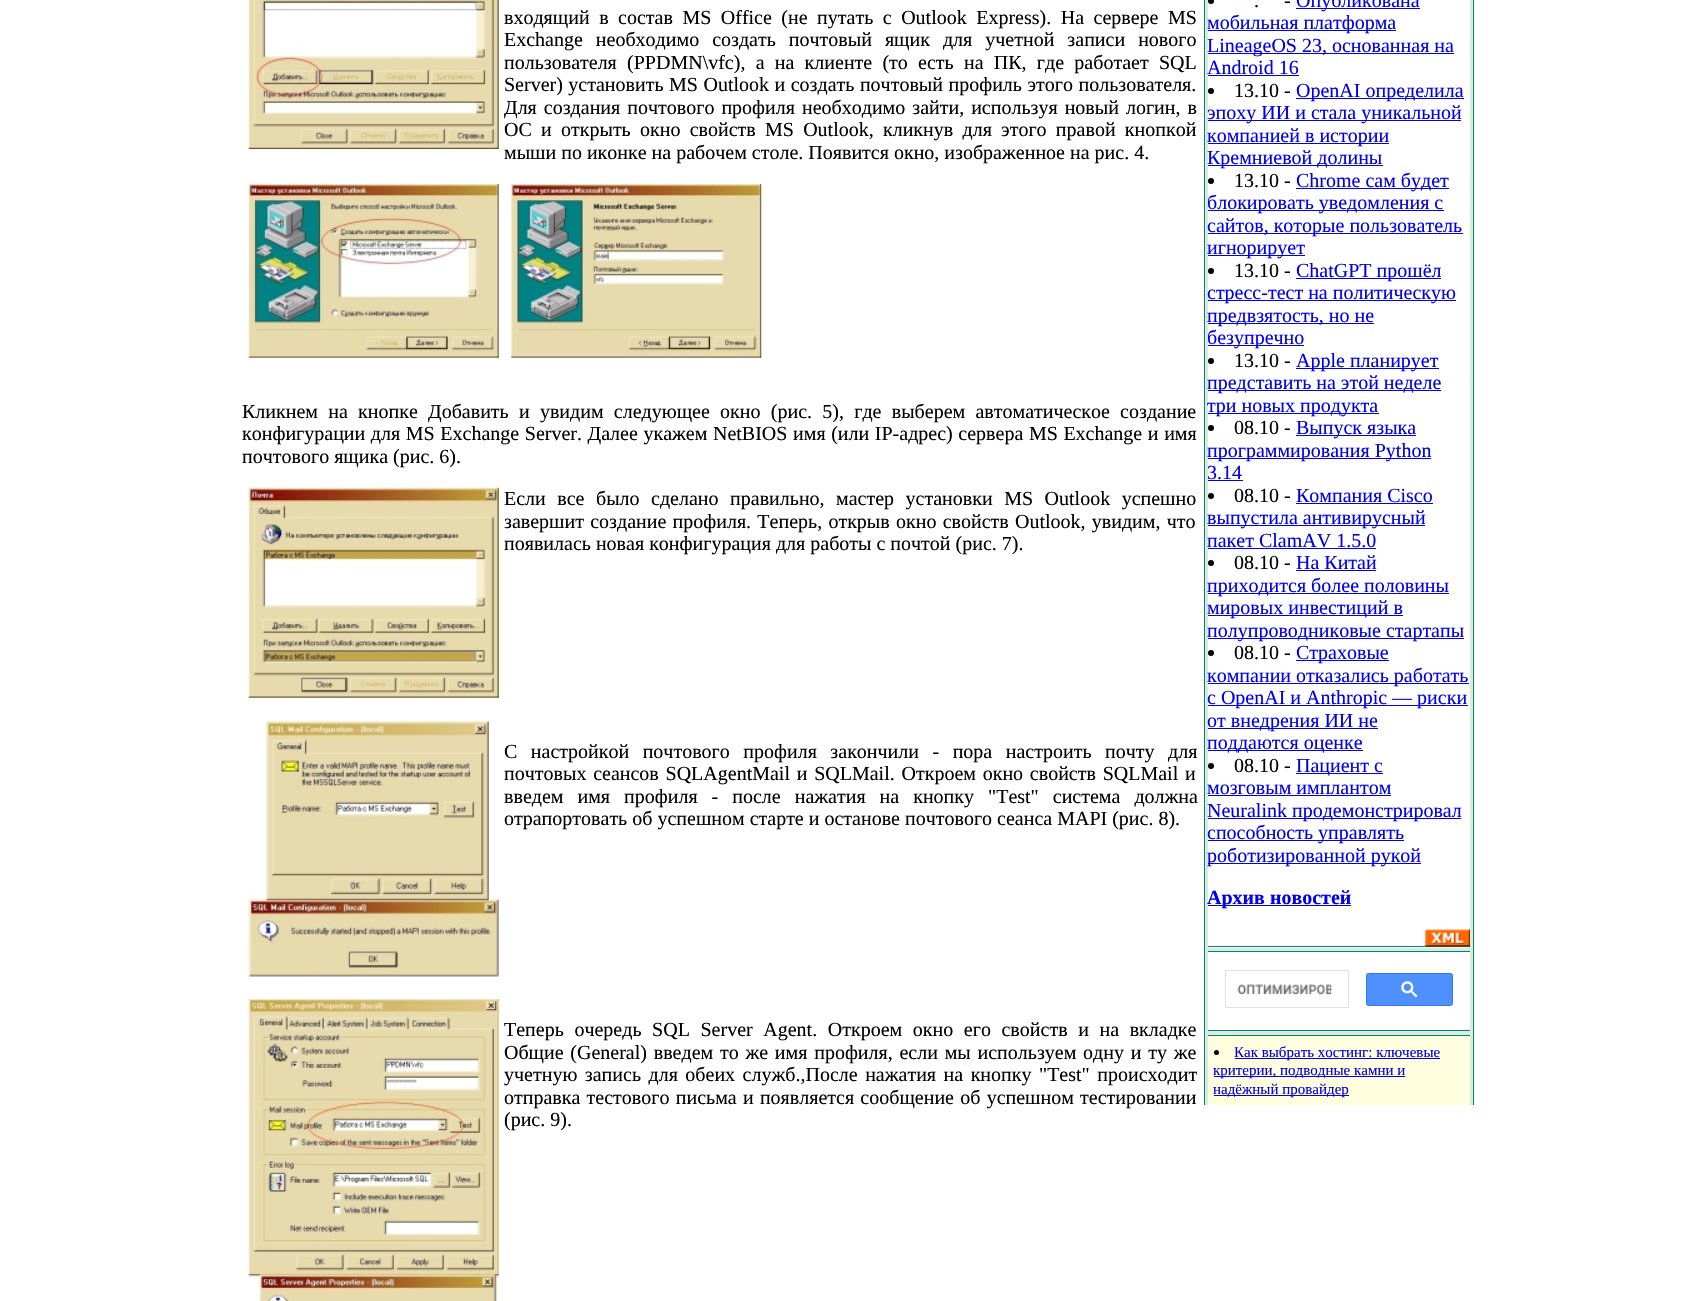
static SkFont makeFont(const char* family, int weight, float size, bool italic = false) {
  SkFontStyle style(weight, SkFontStyle::kNormal_Width,
    italic ? SkFontStyle::kItalic_Slant : SkFontStyle::kUpright_Slant);
  SkFont result(fontMgr->matchFamilyStyle(family, style), size);
  result.setSubpixel(true);
  return result;
}

static void text(SkCanvas* c, const char* s, float x, float y, const SkFont& font, SkColor color) {
  SkPaint ink(SkColor4f::FromColor(color));
  ink.setAntiAlias(true);
  c->drawString(s, x, y, font, ink);
}

static void spacedText(SkCanvas* c, const char* s, float x, float y, const SkFont& font, const SkPaint& ink, float letter, float word) {
  std::vector<SkGlyphID> glyphs(font.countText(s, strlen(s), SkTextEncoding::kUTF8));
  std::vector<float> xs(glyphs.size());
  font.textToGlyphs(s, strlen(s), SkTextEncoding::kUTF8, glyphs);
  font.getXPos(glyphs, xs, x);
  float extra = 0;
  for (size_t i = 0; i < glyphs.size(); i++) {
    xs[i] += extra;
    extra += letter + word * (glyphs[i] == font.unicharToGlyph(' '));
  }
  c->drawTextBlob(SkTextBlob::MakeFromPosHGlyphs(glyphs, xs, y, font), 0, 0, ink);
}

static void box(SkCanvas* c, float l, float t, float r, float b, SkColor color) {
  SkPaint ink(SkColor4f::FromColor(color));
  ink.setAntiAlias(true);
  c->drawRect(SkRect::MakeLTRB(l, t, r, b), ink);
}

static void picture(SkCanvas* c, const char* path, float l, float t, float r, float b) {
  auto image = SkImages::DeferredFromEncodedData(SkData::MakeFromFileName(path));
  c->drawImageRect(image, SkRect::MakeLTRB(l, t, r, b), SkSamplingOptions());
}

void draw(SkCanvas* c) {
  SkPaint paint;
  paint.setAntiAlias(true);
  c->clear(0xffffffff);
  picture(c, "img_01.png", 248, 0, 499, 149);
  SkFont face1 = makeFont("Liberation Serif", 400, 20);
  paint.setColor(0xff000000);
  spacedText(c, "входящий в состав MS Office (не путать с Outlook Express). На сервере MS", 504, 24, face1, paint, 0, 4.5f);
  spacedText(c, "Exchange необходимо создать почтовый ящик для учетной записи нового", 504, 46, face1, paint, 0, 8);
  spacedText(c, "пользователя (PPDMN\\vfc), а на клиенте (то есть на ПК, где работает SQL", 504, 69, face1, paint, 0, 5.25f);
  spacedText(c, "Server) установить MS Outlook и создать почтовый профиль этого пользователя.", 504, 91, face1, paint, 0, 0.5f);
  spacedText(c, "Для создания почтового профиля необходимо зайти, используя новый логин, в", 504, 114, face1, paint, 0, 2);
  spacedText(c, "ОС и открыть окно свойств MS Outlook, кликнув для этого правой кнопкой", 504, 136, face1, paint, 0, 4.25f);
  text(c, "мыши по иконке на рабочем столе. Появится окно, изображенное на рис. 4.", 504, 159, face1, 0xff000000);
  picture(c, "img_02.png", 248, 184, 499, 358);
  picture(c, "img_03.png", 511, 184, 762, 358);
  spacedText(c, "Кликнем на кнопке Добавить и увидим следующее окно (рис. 5), где выберем автоматическое создание", 242, 418, face1, paint, 0, 5.25f);
  spacedText(c, "конфигурации для MS Exchange Server. Далее укажем NetBIOS имя (или IP-адрес) сервера MS Exchange и имя", 242, 440, face1, paint, 0, 0.6f);
  text(c, "почтового ящика (рис. 6).", 242, 463, face1, 0xff000000);
  picture(c, "img_04.png", 248, 487, 499, 698);
  spacedText(c, "Если все было сделано правильно, мастер установки MS Outlook успешно", 504, 505, face1, paint, 0, 6.5f);
  spacedText(c, "завершит создание профиля. Теперь, открыв окно свойств Outlook, увидим, что", 504, 528, face1, paint, 0, 1.25f);
  text(c, "появилась новая конфигурация для работы с почтой (рис. 7).", 504, 550, face1, 0xff000000);
  picture(c, "img_05.png", 248, 720, 499, 977);
  spacedText(c, "С настройкой почтового профиля закончили - пора настроить почту для", 504, 758, face1, paint, 0, 8.5f);
  spacedText(c, "почтовых сеансов SQLAgentMail и SQLMail. Откроем окно свойств SQLMail и", 504, 780, face1, paint, 0, 1.75f);
  spacedText(c, "введем имя профиля - после нажатия на кнопку \"Test\" система должна", 504, 803, face1, paint, 0, 9);
  text(c, "отрапортовать об успешном старте и останове почтового сеанса MAPI (рис. 8).", 504, 825, face1, 0xff000000);
  picture(c, "img_06.png", 248, 999, 499, 1301);
  spacedText(c, "Теперь очередь SQL Server Agent. Откроем окно его свойств и на вкладке", 504, 1036, face1, paint, 0, 5.6f);
  spacedText(c, "Общие (General) введем то же имя профиля, если мы используем одну и ту же", 504, 1059, face1, paint, 0, 1.75f);
  spacedText(c, "учетную запись для обеих служб.,После нажатия на кнопку \"Test\" происходит", 504, 1081, face1, paint, 0, 2.5f);
  spacedText(c, "отправка тестового письма и появляется сообщение об успешном тестировании", 504, 1104, face1, paint, 0, 1.25f);
  text(c, "(рис. 9).", 504, 1126, face1, 0xff000000);
  box(c, 1204, 0, 1205, 1105, 0xff008080);
  box(c, 1205, 0, 1208, 1105, 0xffdaecd7);
  c->drawCircle(1211, 1, 3, paint);
  text(c, "-", 1284, 7, face1, 0xff000000);
  box(c, 1296, 8, 1420, 9, 0xff0000ee);
  text(c, "Опубликована", 1296, 7, face1, 0xff0000ee);
  text(c, ".", 1254, 7, face1, 0xff000000);
  box(c, 1208, 30, 1396, 31, 0xff0000ee);
  text(c, "мобильная платформа", 1207, 29, face1, 0xff0000ee);
  box(c, 1208, 53, 1454, 54, 0xff0000ee);
  text(c, "LineageOS 23, основанная на", 1207, 52, face1, 0xff0000ee);
  text(c, "Android 16", 1207, 74, face1, 0xff0000ee);
  box(c, 1208, 75, 1299, 76, 0xff0000ee);
  c->drawCircle(1211, 91, 3, paint);
  text(c, "13.10 -", 1234, 97, face1, 0xff000000);
  box(c, 1296, 98, 1464, 99, 0xff0000ee);
  text(c, "OpenAI определила", 1296, 97, face1, 0xff0000ee);
  box(c, 1208, 120, 1461, 121, 0xff0000ee);
  text(c, "эпоху ИИ и стала уникальной", 1207, 119, face1, 0xff0000ee);
  box(c, 1208, 143, 1389, 144, 0xff0000ee);
  text(c, "компанией в истории", 1207, 142, face1, 0xff0000ee);
  box(c, 1208, 165, 1383, 166, 0xff0000ee);
  text(c, "Кремниевой долины", 1207, 164, face1, 0xff0000ee);
  c->drawCircle(1211, 181, 3, paint);
  text(c, "13.10 -", 1234, 187, face1, 0xff000000);
  box(c, 1296, 188, 1449, 189, 0xff0000ee);
  text(c, "Chrome сам будет", 1296, 187, face1, 0xff0000ee);
  box(c, 1208, 210, 1444, 211, 0xff0000ee);
  text(c, "блокировать уведомления с", 1207, 209, face1, 0xff0000ee);
  box(c, 1208, 233, 1463, 234, 0xff0000ee);
  text(c, "сайтов, которые пользователь", 1207, 232, face1, 0xff0000ee);
  box(c, 1208, 255, 1305, 256, 0xff0000ee);
  text(c, "игнорирует", 1207, 254, face1, 0xff0000ee);
  c->drawCircle(1211, 271, 3, paint);
  text(c, "13.10 -", 1234, 277, face1, 0xff000000);
  box(c, 1296, 278, 1441, 279, 0xff0000ee);
  text(c, "ChatGPT прошёл", 1296, 277, face1, 0xff0000ee);
  box(c, 1208, 300, 1456, 301, 0xff0000ee);
  text(c, "стресс-тест на политическую", 1207, 299, face1, 0xff0000ee);
  box(c, 1208, 323, 1374, 324, 0xff0000ee);
  text(c, "предвзятость, но не", 1207, 322, face1, 0xff0000ee);
  box(c, 1208, 345, 1304, 346, 0xff0000ee);
  text(c, "безупречно", 1207, 344, face1, 0xff0000ee);
  c->drawCircle(1211, 361, 3, paint);
  text(c, "13.10 -", 1234, 367, face1, 0xff000000);
  box(c, 1296, 368, 1439, 369, 0xff0000ee);
  text(c, "Apple планирует", 1296, 367, face1, 0xff0000ee);
  box(c, 1208, 390, 1441, 391, 0xff0000ee);
  text(c, "представить на этой неделе", 1207, 389, face1, 0xff0000ee);
  box(c, 1208, 413, 1379, 414, 0xff0000ee);
  text(c, "три новых продукта", 1207, 412, face1, 0xff0000ee);
  c->drawCircle(1211, 428, 3, paint);
  text(c, "08.10 -", 1234, 434, face1, 0xff000000);
  box(c, 1296, 435, 1416, 436, 0xff0000ee);
  text(c, "Выпуск языка", 1296, 434, face1, 0xff0000ee);
  box(c, 1208, 458, 1431, 459, 0xff0000ee);
  text(c, "программирования Python", 1207, 457, face1, 0xff0000ee);
  text(c, "3.14", 1207, 479, face1, 0xff0000ee);
  box(c, 1208, 480, 1243, 481, 0xff0000ee);
  c->drawCircle(1211, 496, 3, paint);
  text(c, "08.10 -", 1234, 502, face1, 0xff000000);
  text(c, "Компания Cisco", 1296, 502, face1, 0xff0000ee);
  box(c, 1296, 503, 1433, 504, 0xff0000ee);
  box(c, 1208, 525, 1425, 526, 0xff0000ee);
  text(c, "выпустила антивирусный", 1207, 524, face1, 0xff0000ee);
  text(c, "пакет ClamAV 1.5.0", 1207, 547, face1, 0xff0000ee);
  box(c, 1208, 548, 1376, 549, 0xff0000ee);
  c->drawCircle(1211, 563, 3, paint);
  text(c, "08.10 -", 1234, 569, face1, 0xff000000);
  text(c, "На Китай", 1296, 569, face1, 0xff0000ee);
  box(c, 1296, 570, 1376, 571, 0xff0000ee);
  box(c, 1208, 593, 1449, 594, 0xff0000ee);
  text(c, "приходится более половины", 1207, 592, face1, 0xff0000ee);
  box(c, 1208, 615, 1403, 616, 0xff0000ee);
  text(c, "мировых инвестиций в", 1207, 614, face1, 0xff0000ee);
  box(c, 1208, 638, 1464, 639, 0xff0000ee);
  text(c, "полупроводниковые стартапы", 1207, 637, face1, 0xff0000ee);
  c->drawCircle(1211, 653, 3, paint);
  text(c, "08.10 -", 1234, 659, face1, 0xff000000);
  box(c, 1296, 660, 1389, 661, 0xff0000ee);
  text(c, "Страховые", 1296, 659, face1, 0xff0000ee);
  box(c, 1208, 683, 1469, 684, 0xff0000ee);
  text(c, "компании отказались работать", 1207, 682, face1, 0xff0000ee);
  box(c, 1208, 705, 1468, 706, 0xff0000ee);
  text(c, "с OpenAI и Anthropic — риски", 1207, 704, face1, 0xff0000ee);
  box(c, 1208, 728, 1378, 729, 0xff0000ee);
  text(c, "от внедрения ИИ не", 1207, 727, face1, 0xff0000ee);
  box(c, 1208, 750, 1363, 751, 0xff0000ee);
  text(c, "поддаются оценке", 1207, 749, face1, 0xff0000ee);
  c->drawCircle(1211, 766, 3, paint);
  text(c, "08.10 -", 1234, 772, face1, 0xff000000);
  box(c, 1296, 773, 1383, 774, 0xff0000ee);
  text(c, "Пациент с", 1296, 772, face1, 0xff0000ee);
  text(c, "мозговым имплантом", 1207, 794, face1, 0xff0000ee);
  box(c, 1208, 795, 1391, 796, 0xff0000ee);
  box(c, 1208, 818, 1461, 819, 0xff0000ee);
  text(c, "Neuralink продемонстрировал", 1207, 817, face1, 0xff0000ee);
  box(c, 1208, 840, 1404, 841, 0xff0000ee);
  text(c, "способность управлять", 1207, 839, face1, 0xff0000ee);
  box(c, 1208, 863, 1421, 864, 0xff0000ee);
  text(c, "роботизированной рукой", 1207, 862, face1, 0xff0000ee);
  box(c, 1208, 905, 1351, 906, 0xff0000ee);
  SkFont face2 = makeFont("Liberation Serif", 700, 20);
  text(c, "Архив новостей", 1207, 904, face2, 0xff0000ee);
  box(c, 1208, 946, 1470, 947, 0xff008080);
  picture(c, "img_07.png", 1425, 929, 1470, 947);
  box(c, 1208, 948, 1470, 951, 0xffdaecd7);
  box(c, 1208, 951, 1470, 952, 0xff008080);
  paint.setStyle(SkPaint::kStroke_Style);
  paint.setStrokeWidth(1);
  paint.setColor(0xffdfe1e5);
  c->drawRect(SkRect::MakeLTRB(1225.5f, 970.5f, 1348.5f, 1007.5f), paint);
  picture(c, "img_08.png", 1237, 984, 1332, 995);
  paint.setStyle(SkPaint::kFill_Style);
  paint.setColor(0xff4d90fe);
  c->drawRoundRect(SkRect::MakeLTRB(1366.5f, 973.5f, 1452.5f, 1005.5f), 2, 2, paint);
  paint.setStyle(SkPaint::kStroke_Style);
  paint.setColor(0xff3079ed);
  c->drawRoundRect(SkRect::MakeLTRB(1366.5f, 973.5f, 1452.5f, 1005.5f), 2, 2, paint);
  picture(c, "img_09.png", 1401, 981, 1418, 998);
  box(c, 1208, 1030, 1470, 1031, 0xff008080);
  box(c, 1208, 1031, 1470, 1035, 0xffdaecd7);
  box(c, 1208, 1035, 1470, 1036, 0xff008080);
  box(c, 1208, 1036, 1470, 1105, 0xffffffe0);
  paint.setStyle(SkPaint::kFill_Style);
  paint.setColor(0xff000000);
  c->drawCircle(1216.5f, 1052.5f, 2.5f, paint);
  box(c, 1235, 1058, 1440, 1059, 0xff0000ee);
  SkFont face3 = makeFont("Liberation Serif", 400, 15);
  text(c, "Как выбрать хостинг: ключевые", 1234, 1057, face3, 0xff0000ee);
  box(c, 1214, 1076, 1405, 1077, 0xff0000ee);
  text(c, "критерии, подводные камни и", 1213, 1075, face3, 0xff0000ee);
  box(c, 1214, 1095, 1349, 1096, 0xff0000ee);
  text(c, "надёжный провайдер", 1213, 1094, face3, 0xff0000ee);
  box(c, 1470, 0, 1473, 1105, 0xffdaecd7);
  box(c, 1473, 0, 1474, 1105, 0xff008080);
}
